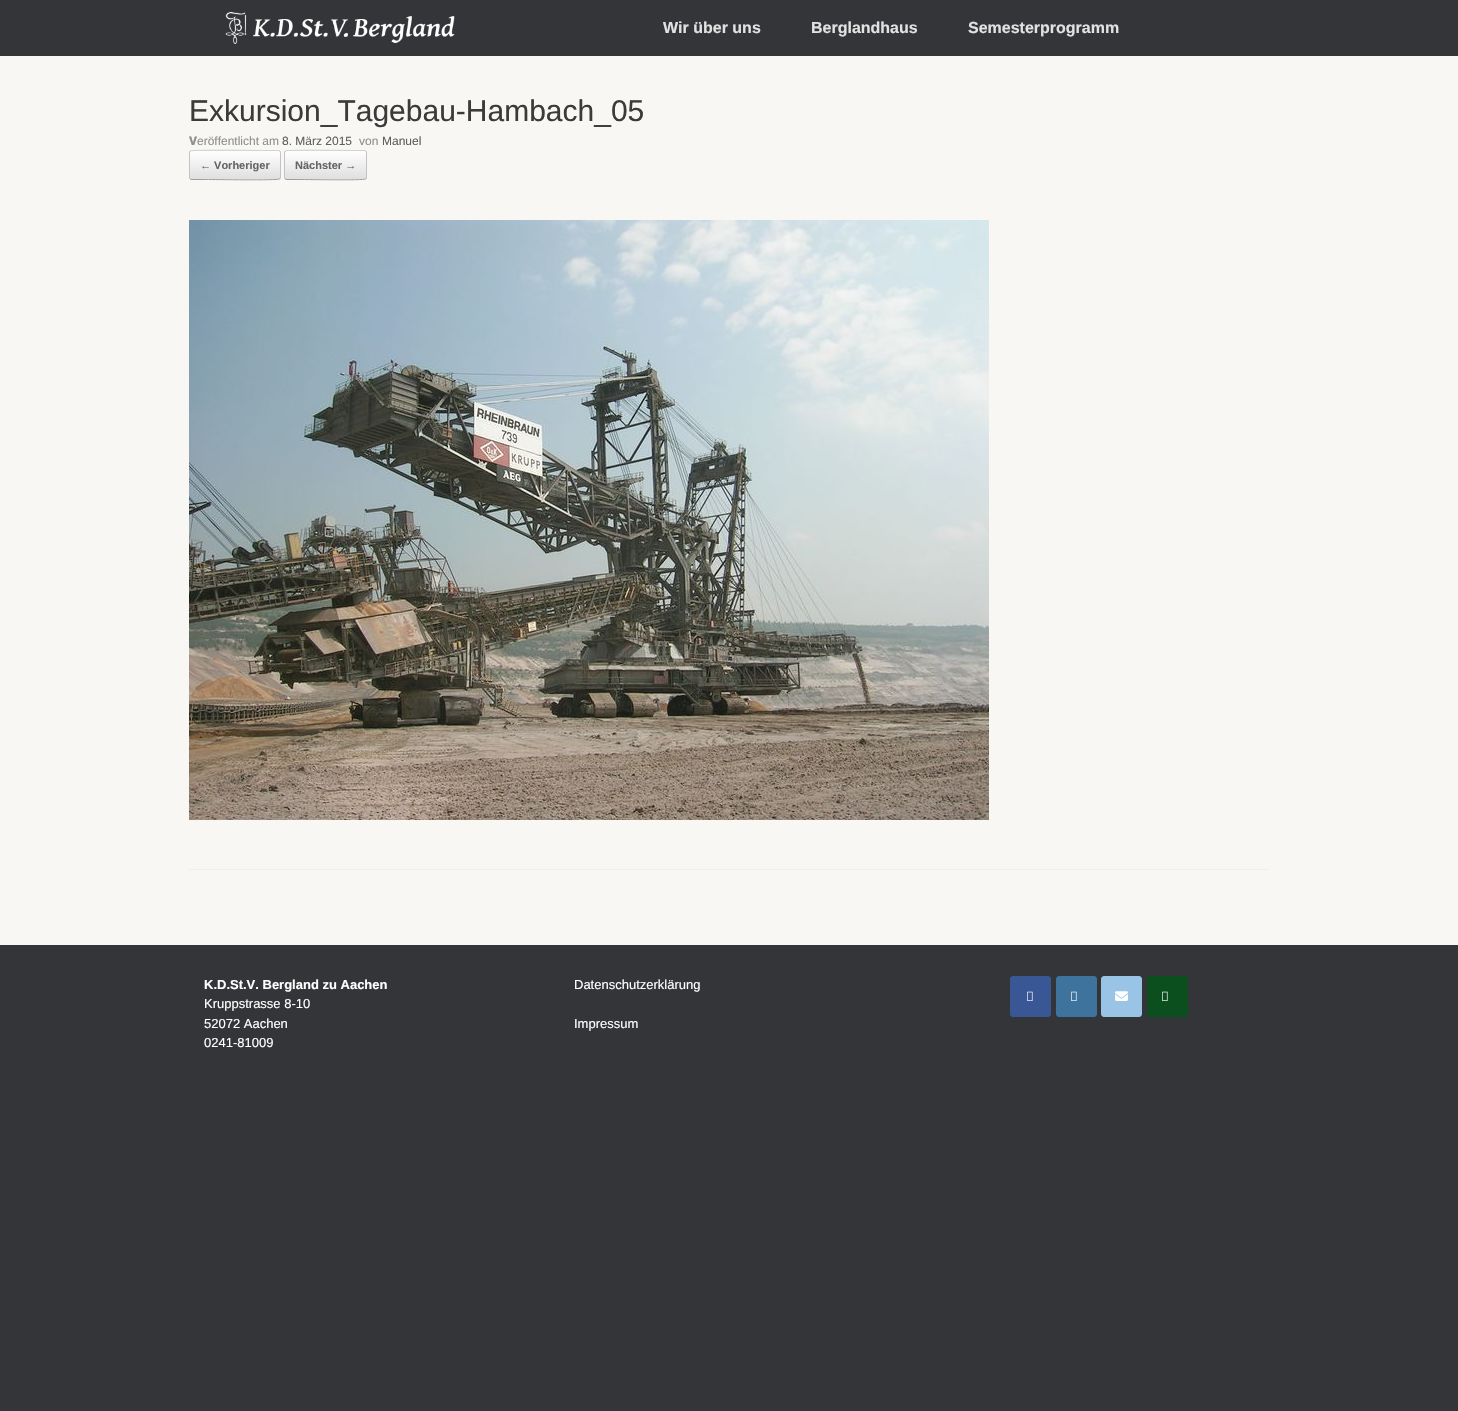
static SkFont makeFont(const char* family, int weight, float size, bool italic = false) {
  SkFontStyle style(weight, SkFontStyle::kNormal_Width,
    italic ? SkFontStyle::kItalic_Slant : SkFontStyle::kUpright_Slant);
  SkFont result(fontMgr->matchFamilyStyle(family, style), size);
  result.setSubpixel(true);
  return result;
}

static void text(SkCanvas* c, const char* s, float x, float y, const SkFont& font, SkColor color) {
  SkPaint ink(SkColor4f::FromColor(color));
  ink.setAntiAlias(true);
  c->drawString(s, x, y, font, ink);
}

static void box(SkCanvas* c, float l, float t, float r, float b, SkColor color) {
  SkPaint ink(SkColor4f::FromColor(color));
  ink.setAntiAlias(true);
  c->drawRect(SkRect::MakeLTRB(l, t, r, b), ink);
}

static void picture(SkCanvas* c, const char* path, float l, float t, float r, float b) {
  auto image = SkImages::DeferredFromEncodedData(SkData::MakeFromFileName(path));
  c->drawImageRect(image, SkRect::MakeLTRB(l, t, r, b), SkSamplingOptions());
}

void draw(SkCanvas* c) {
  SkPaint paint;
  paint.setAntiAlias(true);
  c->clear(0xff343538);
  picture(c, "img_01.png", 225, 12, 455, 44);
  SkFont face1 = makeFont("Liberation Sans", 700, 16);
  text(c, "Wir über uns", 663, 33, face1, 0xffe2e2e2);
  text(c, "Berglandhaus", 811, 33, face1, 0xffe2e2e2);
  text(c, "Semesterprogramm", 968, 33, face1, 0xffe2e2e2);
  box(c, 0, 56, 1458, 945, 0xfff9f7f4);
  box(c, 189, 869, 1269, 870, 0xffeeeeee);
  SkFont face2 = makeFont("Liberation Sans", 400, 30);
  text(c, "Exkursion_Tagebau-Hambach_05", 189, 121, face2, 0xff3b3b3b);
  SkFont face3 = makeFont("Noto Sans", 800, 12);
  text(c, "V", 189, 145, face3, 0xff8f8f8f);
  SkFont face4 = makeFont("Liberation Sans", 400, 12);
  text(c, "eröffentlicht am", 197, 145, face4, 0xff8f8f8f);
  text(c, "8. März 2015", 282, 145, face4, 0xff5e5e5e);
  text(c, "von", 359, 145, face4, 0xff8f8f8f);
  text(c, "Manuel", 382, 145, face4, 0xff5e5e5e);
  c->save();
  c->clipPath(SkPathBuilder().moveTo(192, 150).lineTo(278, 150).cubicTo(279.5f, 150, 281, 151.5f, 281, 153).lineTo(281, 177).cubicTo(281, 178.5f, 279.5f, 180, 278, 180).lineTo(192, 180).cubicTo(190.5f, 180, 189, 178.5f, 189, 177).lineTo(189, 153).cubicTo(189, 151.5f, 190.5f, 150, 192, 150).close().detach(), true);
  {
    const SkColor colors[] = {0xffdfdfdf, 0xffffffff};
    const float stops[] = {0, 1};
    const SkPoint ends[] = {{190, 151}, {190, 123}};
    paint.setShader(SkGradientShader::MakeLinear(ends, colors, stops, 2, SkTileMode::kClamp));
    paint.setAlpha(255);
  }
  c->drawRect(SkRect::MakeLTRB(189, 150, 281, 151), paint);
  {
    const SkColor colors[] = {0xffdfdfdf, 0xffffffff};
    const float stops[] = {0, 1};
    const SkPoint ends[] = {{190, 179}, {190, 151}};
    paint.setShader(SkGradientShader::MakeLinear(ends, colors, stops, 2, SkTileMode::kClamp));
    paint.setAlpha(255);
  }
  c->drawRect(SkRect::MakeLTRB(189, 151, 281, 179), paint);
  {
    const SkColor colors[] = {0xffdfdfdf, 0xffffffff};
    const float stops[] = {0, 1};
    const SkPoint ends[] = {{190, 207}, {190, 179}};
    paint.setShader(SkGradientShader::MakeLinear(ends, colors, stops, 2, SkTileMode::kClamp));
    paint.setAlpha(255);
  }
  c->drawRect(SkRect::MakeLTRB(189, 179, 281, 180), paint);
  c->restore();
  paint.setStyle(SkPaint::kStroke_Style);
  paint.setStrokeWidth(1);
  paint.setShader(nullptr);
  paint.setColor(0xffd2d2d2);
  c->drawPath(SkPathBuilder().moveTo(190, 151).lineTo(190.5f, 151).cubicTo(192.5f, 149.5f, 256, 150.5f, 263.5f, 150.5f).lineTo(278, 150.5f).lineTo(280, 151).detach(), paint);
  paint.setColor(0xffc3c3c3);
  c->drawPath(SkPathBuilder().moveTo(280, 151).cubicTo(280, 151.5f, 280.5f, 152.5f, 280.5f, 153).lineTo(280.5f, 177).cubicTo(280.5f, 177.5f, 280, 178.5f, 280, 179).detach(), paint);
  paint.setColor(0xff9f9f9f);
  c->drawPath(SkPathBuilder().moveTo(280, 179).lineTo(279.5f, 179).cubicTo(277.5f, 180.5f, 214, 179.5f, 206.5f, 179.5f).lineTo(192, 179.5f).lineTo(190, 179).detach(), paint);
  paint.setColor(0xffc3c3c3);
  c->drawPath(SkPathBuilder().moveTo(190, 179).cubicTo(190, 178.5f, 189.5f, 177.5f, 189.5f, 177).lineTo(189.5f, 153).cubicTo(189.5f, 152.5f, 190, 151.5f, 190, 151).detach(), paint);
  SkFont face5 = makeFont("Liberation Sans", 700, 11);
  text(c, "← Vorheriger", 200, 169, face5, 0xff646464);
  c->save();
  c->clipPath(SkPathBuilder().moveTo(287, 150).lineTo(364, 150).cubicTo(365.5f, 150, 367, 151.5f, 367, 153).lineTo(367, 177).cubicTo(367, 178.5f, 365.5f, 180, 364, 180).lineTo(287, 180).cubicTo(285.5f, 180, 284, 178.5f, 284, 177).lineTo(284, 153).cubicTo(284, 151.5f, 285.5f, 150, 287, 150).close().detach(), true);
  paint.setStyle(SkPaint::kFill_Style);
  {
    const SkColor colors[] = {0xffdfdfdf, 0xffffffff};
    const float stops[] = {0, 1};
    const SkPoint ends[] = {{285, 151}, {285, 123}};
    paint.setShader(SkGradientShader::MakeLinear(ends, colors, stops, 2, SkTileMode::kClamp));
    paint.setAlpha(255);
  }
  c->drawRect(SkRect::MakeLTRB(284, 150, 367, 151), paint);
  {
    const SkColor colors[] = {0xffdfdfdf, 0xffffffff};
    const float stops[] = {0, 1};
    const SkPoint ends[] = {{285, 179}, {285, 151}};
    paint.setShader(SkGradientShader::MakeLinear(ends, colors, stops, 2, SkTileMode::kClamp));
    paint.setAlpha(255);
  }
  c->drawRect(SkRect::MakeLTRB(284, 151, 367, 179), paint);
  {
    const SkColor colors[] = {0xffdfdfdf, 0xffffffff};
    const float stops[] = {0, 1};
    const SkPoint ends[] = {{285, 207}, {285, 179}};
    paint.setShader(SkGradientShader::MakeLinear(ends, colors, stops, 2, SkTileMode::kClamp));
    paint.setAlpha(255);
  }
  c->drawRect(SkRect::MakeLTRB(284, 179, 367, 180), paint);
  c->restore();
  paint.setStyle(SkPaint::kStroke_Style);
  paint.setShader(nullptr);
  paint.setColor(0xffd2d2d2);
  c->drawPath(SkPathBuilder().moveTo(285, 151).lineTo(285.5f, 151).cubicTo(287.5f, 149.5f, 344, 150.5f, 351, 150.5f).lineTo(364, 150.5f).lineTo(366, 151).detach(), paint);
  paint.setColor(0xffc3c3c3);
  c->drawPath(SkPathBuilder().moveTo(366, 151).cubicTo(366, 151.5f, 366.5f, 152.5f, 366.5f, 153).lineTo(366.5f, 177).cubicTo(366.5f, 177.5f, 366, 178.5f, 366, 179).detach(), paint);
  paint.setColor(0xff9f9f9f);
  c->drawPath(SkPathBuilder().moveTo(366, 179).lineTo(365.5f, 179).cubicTo(363.5f, 180.5f, 307, 179.5f, 300, 179.5f).lineTo(287, 179.5f).lineTo(285, 179).detach(), paint);
  paint.setColor(0xffc3c3c3);
  c->drawPath(SkPathBuilder().moveTo(285, 179).cubicTo(285, 178.5f, 284.5f, 177.5f, 284.5f, 177).lineTo(284.5f, 153).cubicTo(284.5f, 152.5f, 285, 151.5f, 285, 151).detach(), paint);
  text(c, "Nächster →", 295, 169, face5, 0xff646464);
  picture(c, "img_02.png", 189, 220, 989, 820);
  SkFont face6 = makeFont("Liberation Sans", 700, 13);
  text(c, "K.D.St.V. Bergland zu Aachen", 204, 989, face6, 0xffffffff);
  SkFont face7 = makeFont("Liberation Sans", 400, 13);
  text(c, "Kruppstrasse 8-10", 204, 1008, face7, 0xffffffff);
  text(c, "52072 Aachen", 204, 1028, face7, 0xffffffff);
  text(c, "0241-81009", 204, 1047, face7, 0xffffffff);
  text(c, "Datenschutzerklärung", 574, 989, face7, 0xffffffff);
  text(c, "Impressum", 574, 1028, face7, 0xffffffff);
  paint.setStyle(SkPaint::kFill_Style);
  paint.setColor(0xff3a5795);
  c->drawRoundRect(SkRect::MakeLTRB(1010.5f, 976.5f, 1050.5f, 1016.5f), 2.5f, 2.5f, paint);
  paint.setStyle(SkPaint::kStroke_Style);
  c->drawRoundRect(SkRect::MakeLTRB(1010.5f, 976.5f, 1050.5f, 1016.5f), 2.5f, 2.5f, paint);
  picture(c, "img_03.png", 1027, 991, 1033, 1001);
  paint.setStyle(SkPaint::kFill_Style);
  paint.setColor(0xff3d739c);
  c->drawRoundRect(SkRect::MakeLTRB(1056.5f, 976.5f, 1096.5f, 1016.5f), 2.5f, 2.5f, paint);
  paint.setStyle(SkPaint::kStroke_Style);
  c->drawRoundRect(SkRect::MakeLTRB(1056.5f, 976.5f, 1096.5f, 1016.5f), 2.5f, 2.5f, paint);
  picture(c, "img_04.png", 1071, 991, 1077, 1001);
  paint.setStyle(SkPaint::kFill_Style);
  paint.setColor(0xff99c4e6);
  c->drawRoundRect(SkRect::MakeLTRB(1101.5f, 976.5f, 1141.5f, 1016.5f), 2.5f, 2.5f, paint);
  paint.setStyle(SkPaint::kStroke_Style);
  c->drawRoundRect(SkRect::MakeLTRB(1101.5f, 976.5f, 1141.5f, 1016.5f), 2.5f, 2.5f, paint);
  picture(c, "img_05.png", 1115, 991, 1128, 1001);
  paint.setStyle(SkPaint::kFill_Style);
  paint.setColor(0xff0c4f1f);
  c->drawRoundRect(SkRect::MakeLTRB(1147.5f, 976.5f, 1187.5f, 1016.5f), 2.5f, 2.5f, paint);
  paint.setStyle(SkPaint::kStroke_Style);
  c->drawRoundRect(SkRect::MakeLTRB(1147.5f, 976.5f, 1187.5f, 1016.5f), 2.5f, 2.5f, paint);
  picture(c, "img_06.png", 1162, 991, 1168, 1001);
}
